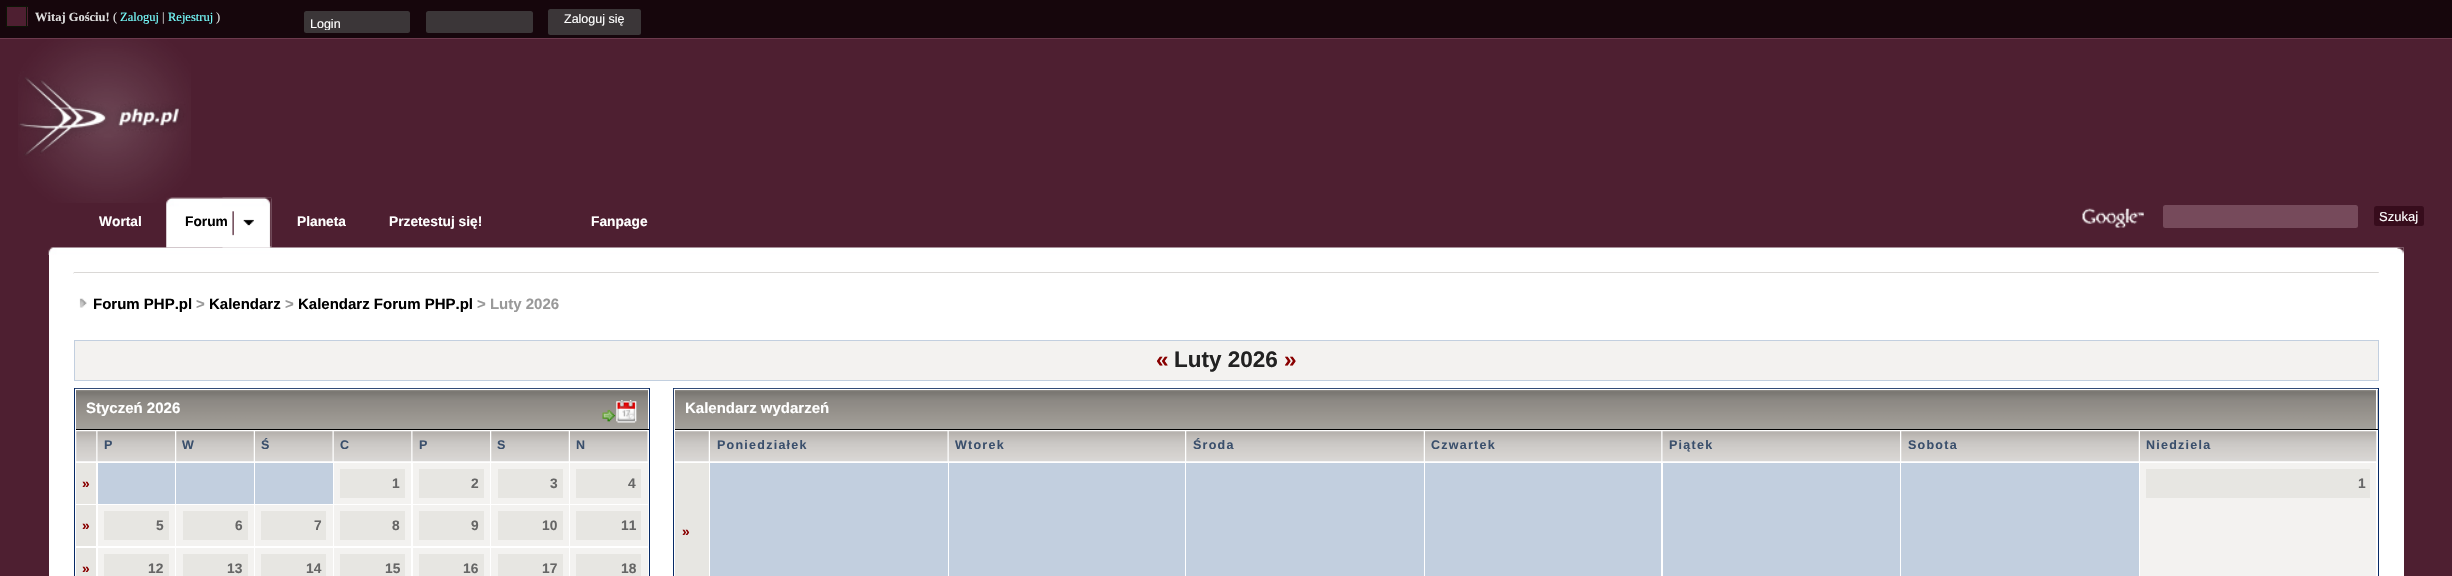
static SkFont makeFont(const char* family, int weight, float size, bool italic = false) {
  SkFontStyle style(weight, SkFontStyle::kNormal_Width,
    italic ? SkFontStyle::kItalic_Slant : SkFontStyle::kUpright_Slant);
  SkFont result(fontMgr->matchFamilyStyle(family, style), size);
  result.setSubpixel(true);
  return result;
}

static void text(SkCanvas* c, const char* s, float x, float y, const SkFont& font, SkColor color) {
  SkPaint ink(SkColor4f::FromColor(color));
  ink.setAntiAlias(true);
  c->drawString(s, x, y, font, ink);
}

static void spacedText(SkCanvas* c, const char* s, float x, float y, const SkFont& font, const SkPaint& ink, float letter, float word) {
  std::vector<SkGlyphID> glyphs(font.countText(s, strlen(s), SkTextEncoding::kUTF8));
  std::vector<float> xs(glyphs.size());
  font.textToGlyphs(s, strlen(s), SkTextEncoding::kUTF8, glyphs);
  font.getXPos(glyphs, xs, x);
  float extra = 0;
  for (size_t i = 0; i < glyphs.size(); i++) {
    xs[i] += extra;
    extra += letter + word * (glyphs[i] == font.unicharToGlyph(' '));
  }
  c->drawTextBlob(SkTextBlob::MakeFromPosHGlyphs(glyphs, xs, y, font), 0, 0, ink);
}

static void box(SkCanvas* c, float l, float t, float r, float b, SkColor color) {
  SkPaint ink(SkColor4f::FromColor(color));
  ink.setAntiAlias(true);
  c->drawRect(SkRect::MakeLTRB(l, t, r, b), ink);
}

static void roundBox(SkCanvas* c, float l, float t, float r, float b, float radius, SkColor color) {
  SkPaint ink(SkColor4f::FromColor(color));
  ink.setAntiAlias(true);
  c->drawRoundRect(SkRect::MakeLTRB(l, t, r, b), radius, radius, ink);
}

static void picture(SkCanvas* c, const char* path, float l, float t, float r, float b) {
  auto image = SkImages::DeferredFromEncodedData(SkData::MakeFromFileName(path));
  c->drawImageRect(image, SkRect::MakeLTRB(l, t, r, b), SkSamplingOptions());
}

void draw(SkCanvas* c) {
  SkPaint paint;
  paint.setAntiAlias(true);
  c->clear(0xff4e1f31);
  box(c, 0, 0, 2452, 38, 0xff16060c);
  box(c, 0, 38, 2452, 39, 0xff6c3a4d);
  box(c, 6, 26, 28, 27, 0xff0c1606);
  box(c, 7, 7, 28, 26, 0xff4e1f31);
  box(c, 6, 6, 28, 7, 0xff0c1606);
  box(c, 26, 6, 27, 26, 0xff0c1606);
  box(c, 6, 6, 7, 26, 0xff0c1606);
  SkFont face1 = makeFont("Liberation Serif", 700, 12.5f);
  text(c, "Witaj Gościu!", 35, 21, face1, 0xffdddddd);
  SkFont face2 = makeFont("Liberation Serif", 400, 12.5f);
  text(c, "(", 113, 21, face2, 0xffdddddd);
  text(c, "Zaloguj", 120, 21, face2, 0xff76ffff);
  text(c, "|", 162, 21, face2, 0xffdddddd);
  text(c, "Rejestruj", 168, 21, face2, 0xff76ffff);
  text(c, ")", 216, 21, face2, 0xffdddddd);
  roundBox(c, 304, 11, 410, 33, 2.5f, 0xff3b3638);
  c->save();
  c->clipRect(SkRect::MakeLTRB(310, 16, 404, 30));
  SkFont face3 = makeFont("Liberation Sans", 400, 12.5f);
  text(c, "Login", 310, 28, face3, 0xffffffff);
  c->restore();
  roundBox(c, 426, 11, 533, 33, 2.5f, 0xff3b3638);
  roundBox(c, 548, 9, 641, 35, 2.5f, 0xff3b3638);
  text(c, "Zaloguj się", 564, 23, face3, 0xffffffff);
  picture(c, "img_01.png", 18, 39, 191, 203);
  SkFont face4 = makeFont("Liberation Sans", 700, 13.75f);
  text(c, "Wortal", 99, 226, face4, 0xffffffff);
  box(c, 49, 248, 2404, 576, 0xffffffff);
  picture(c, "img_05.png", 48, 247, 2404, 255);
  picture(c, "img_02.png", 166, 197, 272, 248);
  picture(c, "img_03.png", 222, 197, 272, 248);
  text(c, "Forum", 185, 226, face4, 0xff000000);
  text(c, "Planeta", 297, 226, face4, 0xffffffff);
  text(c, "Przetestuj się!", 389, 226, face4, 0xffffffff);
  text(c, "Fanpage", 591, 226, face4, 0xffffffff);
  picture(c, "img_04.png", 2082, 208, 2144, 228);
  roundBox(c, 2163, 205, 2358, 228, 2.5f, 0xff764a5b);
  roundBox(c, 2374, 206, 2424, 226, 2.5f, 0xff370c1c);
  SkFont face5 = makeFont("Liberation Sans", 400, 13);
  text(c, "Szukaj", 2379, 221, face5, 0xffffffff);
  picture(c, "img_06.png", 2397, 247, 2404, 254);
  picture(c, "img_07.png", 73, 272, 2379, 274);
  box(c, 74, 273, 2379, 274, 0xffffffff);
  picture(c, "img_08.png", 79, 298, 87, 308);
  SkFont face6 = makeFont("Liberation Sans", 700, 15);
  text(c, "Forum PHP.pl", 93, 309, face6, 0xff000000);
  text(c, ">", 196, 309, face6, 0xff999999);
  text(c, "Kalendarz", 209, 309, face6, 0xff000000);
  text(c, ">", 285, 309, face6, 0xff999999);
  text(c, "Kalendarz Forum PHP.pl", 298, 309, face6, 0xff000000);
  text(c, "> Luty 2026", 477, 309, face6, 0xff999999);
  paint.setColor(0xfff3f2f0);
  c->drawRect(SkRect::MakeLTRB(74.5f, 340.5f, 2378.5f, 380.5f), paint);
  paint.setStyle(SkPaint::kStroke_Style);
  paint.setStrokeWidth(1);
  paint.setColor(0xffc2cfdf);
  c->drawRect(SkRect::MakeLTRB(74.5f, 340.5f, 2378.5f, 380.5f), paint);
  SkFont face7 = makeFont("Liberation Sans", 700, 22.5f);
  text(c, "«", 1156, 367, face7, 0xff890000);
  text(c, "Luty 2026", 1174, 367, face7, 0xff222222);
  text(c, "»", 1284, 367, face7, 0xff890000);
  paint.setColor(0xff072a66);
  c->drawRect(SkRect::MakeLTRB(74.5f, 388.5f, 649.5f, 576.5f), paint);
  picture(c, "img_09.png", 75, 388, 649, 429);
  box(c, 75, 389, 649, 390, 0xffffffff);
  box(c, 648, 389, 649, 430, 0xffffffff);
  box(c, 75, 429, 649, 430, 0xff000000);
  box(c, 75, 389, 76, 430, 0xffffffff);
  text(c, "Styczeń 2026", 86, 413, face6, 0xffffffff);
  picture(c, "img_10.png", 602, 400, 637, 423);
  picture(c, "img_11.png", 76, 431, 97, 462);
  picture(c, "img_12.png", 97, 431, 175, 462);
  SkFont face8 = makeFont("Liberation Sans", 700, 12.5f);
  paint.setStyle(SkPaint::kFill_Style);
  paint.setColor(0xff3a4f6c);
  spacedText(c, "P", 104, 449, face8, paint, 1.25f, 0);
  picture(c, "img_13.png", 176, 431, 254, 462);
  spacedText(c, "W", 182, 449, face8, paint, 1.25f, 0);
  picture(c, "img_14.png", 255, 431, 333, 462);
  spacedText(c, "Ś", 261, 449, face8, paint, 1.25f, 0);
  picture(c, "img_15.png", 333, 431, 412, 462);
  spacedText(c, "C", 340, 449, face8, paint, 1.25f, 0);
  picture(c, "img_12.png", 412, 431, 490, 462);
  spacedText(c, "P", 419, 449, face8, paint, 1.25f, 0);
  picture(c, "img_13.png", 491, 431, 569, 462);
  spacedText(c, "S", 497, 449, face8, paint, 1.25f, 0);
  picture(c, "img_14.png", 570, 431, 648, 462);
  spacedText(c, "N", 576, 449, face8, paint, 1.25f, 0);
  box(c, 76, 463, 96, 504, 0xffe7e6e2);
  text(c, "»", 82, 488, face4, 0xff890000);
  box(c, 98, 463, 175, 504, 0xffc2cfdf);
  box(c, 176, 463, 254, 504, 0xffc2cfdf);
  box(c, 255, 463, 333, 504, 0xffc2cfdf);
  box(c, 334, 463, 411, 504, 0xfff3f2f0);
  box(c, 340, 469, 405, 498, 0xffe7e6e2);
  text(c, "1", 392, 488, face4, 0xff666666);
  box(c, 413, 463, 490, 504, 0xfff3f2f0);
  box(c, 419, 469, 484, 498, 0xffe7e6e2);
  text(c, "2", 471, 488, face4, 0xff666666);
  box(c, 491, 463, 569, 504, 0xfff3f2f0);
  box(c, 498, 469, 563, 498, 0xffe7e6e2);
  text(c, "3", 550, 488, face4, 0xff666666);
  box(c, 570, 463, 648, 504, 0xfff3f2f0);
  box(c, 576, 469, 641, 498, 0xffe7e6e2);
  text(c, "4", 628, 488, face4, 0xff666666);
  box(c, 76, 505, 96, 546, 0xffe7e6e2);
  text(c, "»", 82, 530, face4, 0xff890000);
  box(c, 98, 505, 175, 546, 0xfff3f2f0);
  box(c, 104, 511, 169, 540, 0xffe7e6e2);
  text(c, "5", 156, 530, face4, 0xff666666);
  box(c, 176, 505, 254, 546, 0xfff3f2f0);
  box(c, 183, 511, 248, 540, 0xffe7e6e2);
  text(c, "6", 235, 530, face4, 0xff666666);
  box(c, 255, 505, 333, 546, 0xfff3f2f0);
  box(c, 261, 511, 326, 540, 0xffe7e6e2);
  text(c, "7", 314, 530, face4, 0xff666666);
  box(c, 334, 505, 411, 546, 0xfff3f2f0);
  box(c, 340, 511, 405, 540, 0xffe7e6e2);
  text(c, "8", 392, 530, face4, 0xff666666);
  box(c, 413, 505, 490, 546, 0xfff3f2f0);
  box(c, 419, 511, 484, 540, 0xffe7e6e2);
  text(c, "9", 471, 530, face4, 0xff666666);
  box(c, 491, 505, 569, 546, 0xfff3f2f0);
  box(c, 498, 511, 563, 540, 0xffe7e6e2);
  text(c, "10", 542, 530, face4, 0xff666666);
  box(c, 570, 505, 648, 546, 0xfff3f2f0);
  box(c, 576, 511, 641, 540, 0xffe7e6e2);
  text(c, "11", 621, 530, face4, 0xff666666);
  box(c, 76, 548, 96, 576, 0xffe7e6e2);
  text(c, "»", 82, 573, face4, 0xff890000);
  box(c, 98, 548, 175, 576, 0xfff3f2f0);
  box(c, 104, 554, 169, 576, 0xffe7e6e2);
  text(c, "12", 148, 573, face4, 0xff666666);
  box(c, 176, 548, 254, 576, 0xfff3f2f0);
  box(c, 183, 554, 248, 576, 0xffe7e6e2);
  text(c, "13", 227, 573, face4, 0xff666666);
  box(c, 255, 548, 333, 576, 0xfff3f2f0);
  box(c, 261, 554, 326, 576, 0xffe7e6e2);
  text(c, "14", 306, 573, face4, 0xff666666);
  box(c, 334, 548, 411, 576, 0xfff3f2f0);
  box(c, 340, 554, 405, 576, 0xffe7e6e2);
  text(c, "15", 385, 573, face4, 0xff666666);
  box(c, 413, 548, 490, 576, 0xfff3f2f0);
  box(c, 419, 554, 484, 576, 0xffe7e6e2);
  text(c, "16", 463, 573, face4, 0xff666666);
  box(c, 491, 548, 569, 576, 0xfff3f2f0);
  box(c, 498, 554, 563, 576, 0xffe7e6e2);
  text(c, "17", 542, 573, face4, 0xff666666);
  box(c, 570, 548, 648, 576, 0xfff3f2f0);
  box(c, 576, 554, 641, 576, 0xffe7e6e2);
  text(c, "18", 621, 573, face4, 0xff666666);
  paint.setStyle(SkPaint::kStroke_Style);
  paint.setColor(0xff072a66);
  c->drawRect(SkRect::MakeLTRB(673.5f, 388.5f, 2378.5f, 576.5f), paint);
  picture(c, "img_16.png", 673, 388, 2378, 430);
  box(c, 674, 389, 2378, 390, 0xffffffff);
  box(c, 2376, 389, 2377, 430, 0xffffffff);
  box(c, 674, 429, 2378, 430, 0xff000000);
  box(c, 674, 389, 675, 430, 0xffffffff);
  text(c, "Kalendarz wydarzeń", 685, 413, face6, 0xffffffff);
  picture(c, "img_17.png", 675, 431, 709, 462);
  picture(c, "img_18.png", 710, 431, 948, 462);
  paint.setStyle(SkPaint::kFill_Style);
  paint.setColor(0xff3a4f6c);
  spacedText(c, "Poniedziałek", 717, 449, face8, paint, 1.25f, 0);
  picture(c, "img_19.png", 948, 431, 1185, 462);
  spacedText(c, "Wtorek", 955, 449, face8, paint, 1.25f, 0);
  picture(c, "img_20.png", 1186, 431, 1424, 462);
  spacedText(c, "Środa", 1193, 449, face8, paint, 1.25f, 0);
  picture(c, "img_21.png", 1425, 431, 1662, 462);
  spacedText(c, "Czwartek", 1431, 449, face8, paint, 1.25f, 0);
  picture(c, "img_22.png", 1662, 431, 1900, 462);
  spacedText(c, "Piątek", 1669, 449, face8, paint, 1.25f, 0);
  picture(c, "img_20.png", 1901, 431, 2139, 462);
  spacedText(c, "Sobota", 1908, 449, face8, paint, 1.25f, 0);
  picture(c, "img_21.png", 2140, 431, 2377, 462);
  spacedText(c, "Niedziela", 2146, 449, face8, paint, 1.25f, 0);
  box(c, 710, 463, 948, 576, 0xffc2cfdf);
  box(c, 949, 463, 1185, 576, 0xffc2cfdf);
  box(c, 1186, 463, 1424, 576, 0xffc2cfdf);
  box(c, 1425, 463, 1661, 576, 0xffc2cfdf);
  box(c, 1663, 463, 1900, 576, 0xffc2cfdf);
  box(c, 1901, 463, 2139, 576, 0xffc2cfdf);
  box(c, 2140, 463, 2376, 576, 0xfff3f2f0);
  box(c, 2146, 469, 2370, 498, 0xffe7e6e2);
  text(c, "1", 2358, 488, face4, 0xff666666);
  box(c, 675, 463, 709, 576, 0xffe7e6e2);
  text(c, "»", 682, 536, face4, 0xff890000);
}
